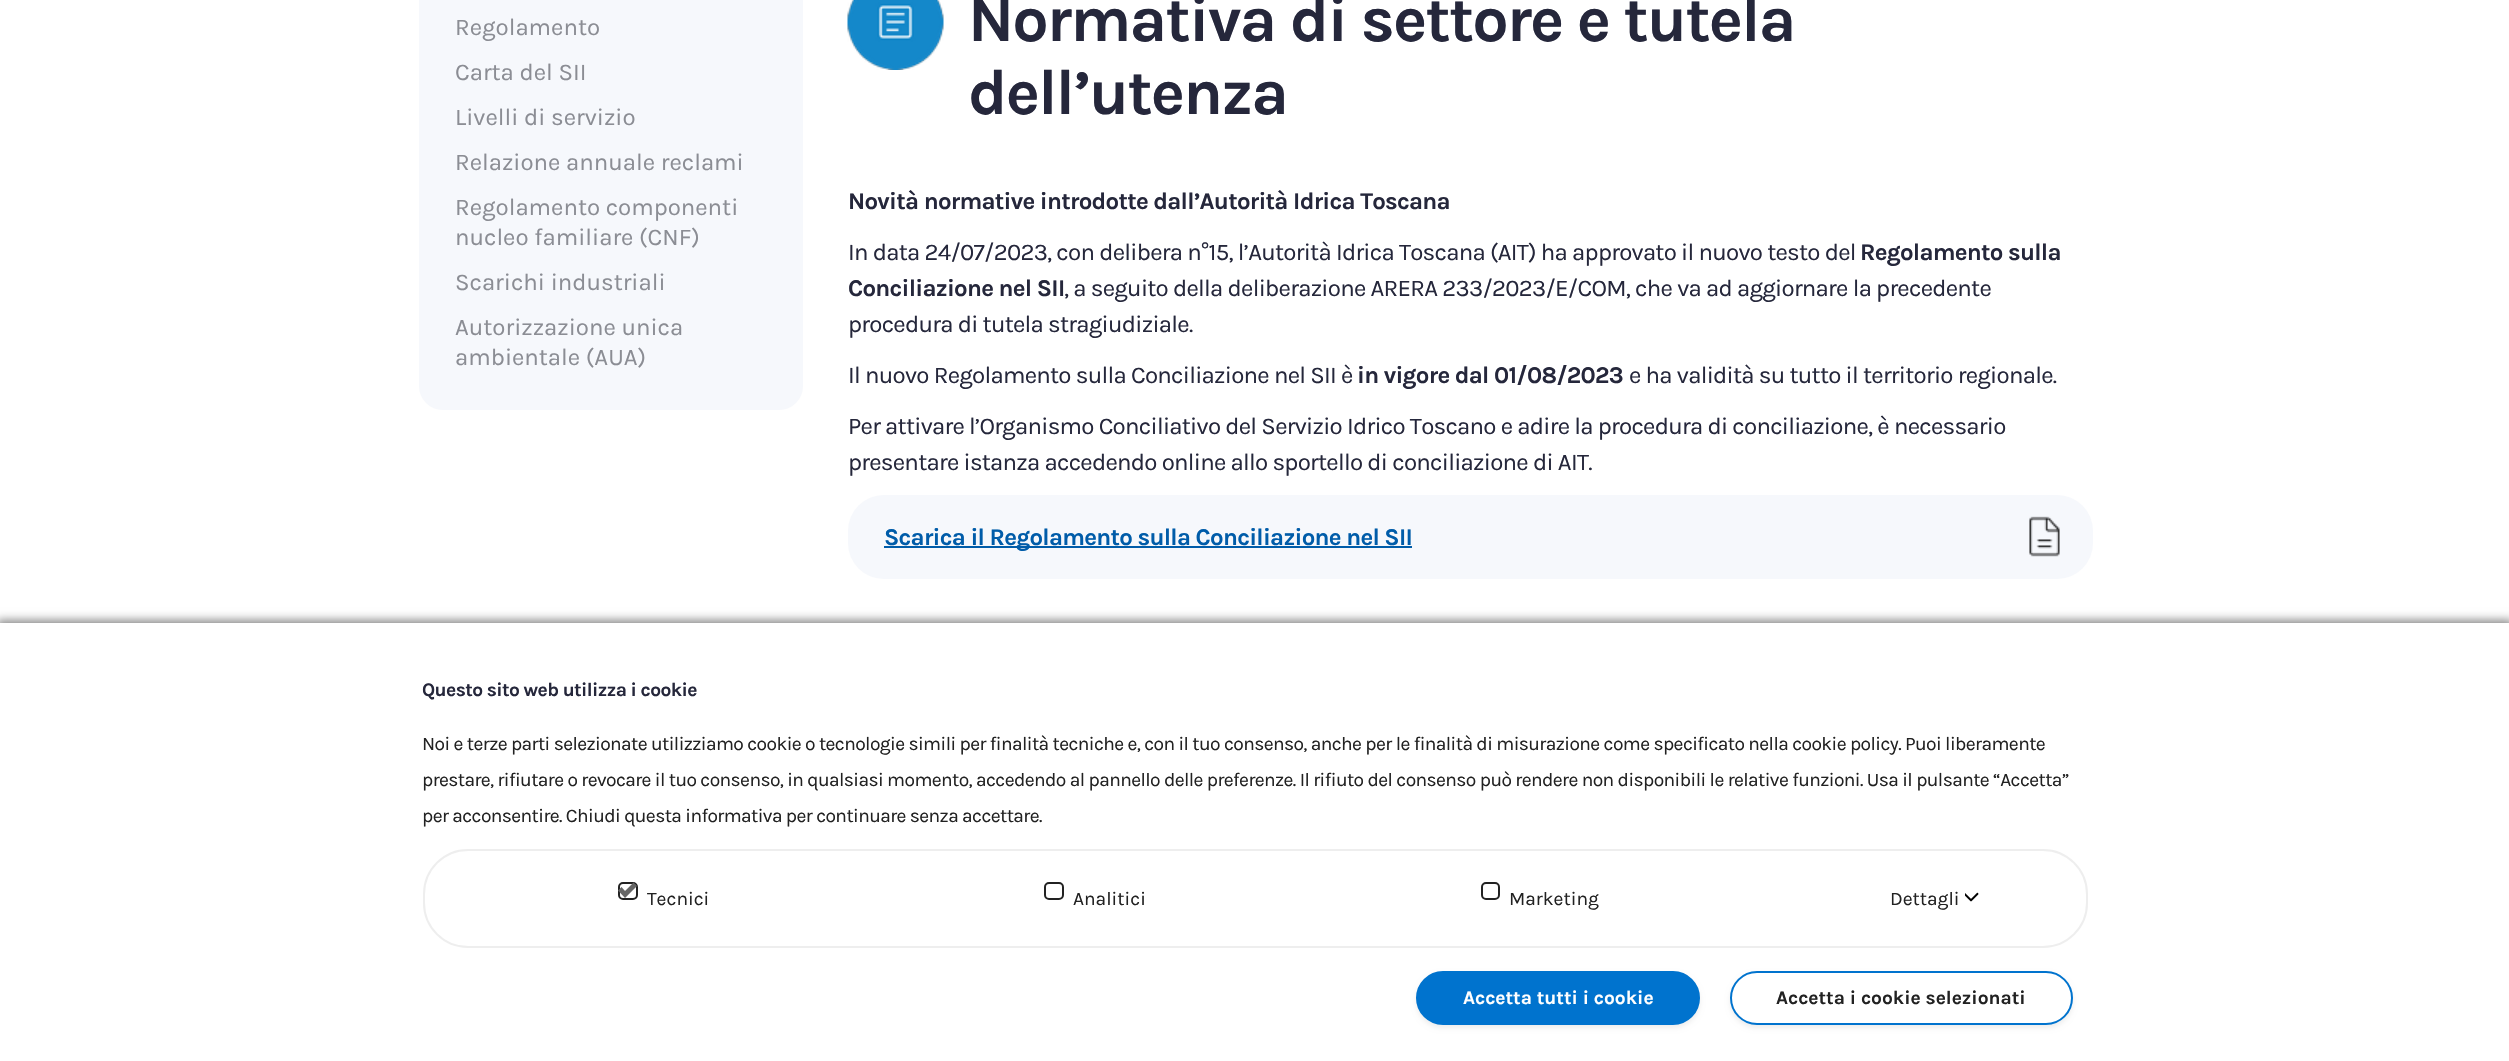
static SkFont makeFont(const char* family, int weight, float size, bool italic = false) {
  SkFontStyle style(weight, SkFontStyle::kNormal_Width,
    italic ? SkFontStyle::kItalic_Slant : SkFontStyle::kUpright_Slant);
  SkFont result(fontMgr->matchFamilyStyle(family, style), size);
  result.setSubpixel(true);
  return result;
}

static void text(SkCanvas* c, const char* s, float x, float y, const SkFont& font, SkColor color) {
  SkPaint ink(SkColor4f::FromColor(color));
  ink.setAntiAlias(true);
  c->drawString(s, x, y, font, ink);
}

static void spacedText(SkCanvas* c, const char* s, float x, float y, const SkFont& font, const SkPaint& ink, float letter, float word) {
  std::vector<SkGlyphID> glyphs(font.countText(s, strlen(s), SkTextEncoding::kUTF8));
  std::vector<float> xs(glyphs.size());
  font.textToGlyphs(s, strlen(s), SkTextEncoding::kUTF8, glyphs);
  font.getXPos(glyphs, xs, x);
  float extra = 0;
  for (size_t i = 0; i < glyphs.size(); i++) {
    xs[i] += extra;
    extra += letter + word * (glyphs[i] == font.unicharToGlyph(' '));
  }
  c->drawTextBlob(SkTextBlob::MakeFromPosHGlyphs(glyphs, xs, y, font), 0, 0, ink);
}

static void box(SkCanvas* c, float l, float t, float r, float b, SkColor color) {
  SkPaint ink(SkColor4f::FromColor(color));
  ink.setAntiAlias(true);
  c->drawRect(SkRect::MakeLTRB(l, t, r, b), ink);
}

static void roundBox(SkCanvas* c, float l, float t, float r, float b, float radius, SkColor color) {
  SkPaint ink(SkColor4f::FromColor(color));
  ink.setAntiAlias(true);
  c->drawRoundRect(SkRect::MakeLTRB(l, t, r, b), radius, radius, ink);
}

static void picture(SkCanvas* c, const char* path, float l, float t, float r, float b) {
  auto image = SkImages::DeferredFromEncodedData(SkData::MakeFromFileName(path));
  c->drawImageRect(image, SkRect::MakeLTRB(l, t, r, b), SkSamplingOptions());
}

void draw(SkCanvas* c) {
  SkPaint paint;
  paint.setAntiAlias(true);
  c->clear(0xffffffff);
  roundBox(c, 419, -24, 803, 410, 24, 0xfff6f8fc);
  SkFont face1 = makeFont("Karla", 400, 24);
  text(c, "Regolamento", 455, 35, face1, 0xff8b8d94);
  text(c, "Carta del SII", 455, 80, face1, 0xff8b8d94);
  text(c, "Livelli di servizio", 455, 125, face1, 0xff8b8d94);
  text(c, "Relazione annuale reclami", 455, 170, face1, 0xff8b8d94);
  text(c, "Regolamento componenti", 455, 215, face1, 0xff8b8d94);
  text(c, "nucleo familiare (CNF)", 455, 245, face1, 0xff8b8d94);
  text(c, "Scarichi industriali", 455, 290, face1, 0xff8b8d94);
  text(c, "Autorizzazione unica", 455, 335, face1, 0xff8b8d94);
  text(c, "ambientale (AUA)", 455, 365, face1, 0xff8b8d94);
  picture(c, "img_01.png", 847, 0, 944, 70);
  SkFont face2 = makeFont("Karla", 700, 64.5f);
  paint.setColor(0xff25273b);
  spacedText(c, "Normativa di settore e tutela", 968, 41, face2, paint, -1.95f, 0);
  spacedText(c, "dell’utenza", 968, 114, face2, paint, -1.95f, 0);
  SkFont face3 = makeFont("Karla", 700, 24);
  spacedText(c, "Novità normative introdotte dall’Autorità Idrica Toscana", 848, 209, face3, paint, -0.72f, 0);
  spacedText(c, "In data 24/07/2023, con delibera n°15, l’Autorità Idrica Toscana (AIT) ha approvato il nuovo testo del", 848, 260, face1, paint, -0.72f, 0);
  spacedText(c, "Regolamento sulla", 1860, 260, face3, paint, -0.72f, 0);
  spacedText(c, "Conciliazione nel SII", 848, 296, face3, paint, -0.72f, 0);
  spacedText(c, ", a seguito della deliberazione ARERA 233/2023/E/COM, che va ad aggiornare la precedente", 1064, 296, face1, paint, -0.72f, 0);
  spacedText(c, "procedura di tutela stragiudiziale.", 848, 332, face1, paint, -0.72f, 0);
  spacedText(c, "Il nuovo Regolamento sulla Conciliazione nel SII è", 848, 383, face1, paint, -0.72f, 0);
  spacedText(c, "in vigore dal 01/08/2023", 1357, 383, face3, paint, -0.72f, 0);
  spacedText(c, "e ha validità su tutto il territorio regionale.", 1629, 383, face1, paint, -0.72f, 0);
  spacedText(c, "Per attivare l’Organismo Conciliativo del Servizio Idrico Toscano e adire la procedura di conciliazione, è necessario", 848, 434, face1, paint, -0.72f, 0);
  spacedText(c, "presentare istanza accedendo online allo sportello di conciliazione di AIT.", 848, 470, face1, paint, -0.72f, 0);
  roundBox(c, 848, 495, 2093, 579, 36, 0xfff6f8fc);
  picture(c, "img_02.png", 2029, 516, 2060, 557);
  box(c, 884, 546, 1412, 548, 0xff005ca9);
  paint.setColor(0xff005ca9);
  spacedText(c, "Scarica il Regolamento sulla Conciliazione nel SII", 884, 545, face3, paint, -0.72f, 0);
  paint.setColor(0xff888888);
  paint.setMaskFilter(SkMaskFilter::MakeBlur(kNormal_SkBlurStyle, 4.5f));
  c->drawRect(SkRect::MakeLTRB(-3, 620, 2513, 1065), paint);
  paint.setMaskFilter(nullptr);
  box(c, 0, 623, 2509, 1061, 0xffffffff);
  SkFont face4 = makeFont("Karla", 700, 19.2f);
  paint.setColor(0xff25273b);
  spacedText(c, "Questo sito web utilizza i cookie", 422, 696, face4, paint, -0.58f, 0);
  SkFont face5 = makeFont("Karla", 400, 19.2f);
  paint.setColor(0xff222222);
  spacedText(c, "Noi e terze parti selezionate utilizziamo cookie o tecnologie simili per finalità tecniche e, con il tuo consenso, anche per le finalità di misurazione come specificato nella cookie policy. Puoi liberamente", 422, 750, face5, paint, -0.58f, 0);
  spacedText(c, "prestare, rifiutare o revocare il tuo consenso, in qualsiasi momento, accedendo al pannello delle preferenze. Il rifiuto del consenso può rendere non disponibili le relative funzioni. Usa il pulsante “Accetta”", 422, 786, face5, paint, -0.58f, 0);
  spacedText(c, "per acconsentire. Chiudi questa informativa per continuare senza accettare.", 422, 822, face5, paint, -0.58f, 0);
  paint.setStyle(SkPaint::kStroke_Style);
  paint.setStrokeWidth(2);
  paint.setColor(0xffeeeeee);
  c->drawRoundRect(SkRect::MakeLTRB(424, 850, 2087, 947), 44, 44, paint);
  paint.setColor(0xff222222);
  c->drawRoundRect(SkRect::MakeLTRB(619, 883, 637, 899), 4, 4, paint);
  paint.setStyle(SkPaint::kFill_Style);
  paint.setColor(0xff666666);
  c->drawPath(SkPathBuilder().moveTo(633.5f, 882.5f).lineTo(625, 891).lineTo(621.5f, 887).lineTo(618, 890.5f).lineTo(625, 898).lineTo(637, 886).close().detach(), paint);
  text(c, "Tecnici", 647, 905, face5, 0xff222222);
  paint.setStyle(SkPaint::kStroke_Style);
  paint.setColor(0xff222222);
  c->drawRoundRect(SkRect::MakeLTRB(1045, 883, 1063, 899), 4, 4, paint);
  text(c, "Analitici", 1073, 905, face5, 0xff222222);
  c->drawRoundRect(SkRect::MakeLTRB(1482, 883, 1499, 899), 4, 4, paint);
  text(c, "Marketing", 1509, 905, face5, 0xff222222);
  text(c, "Dettagli", 1890, 905, face5, 0xff222222);
  picture(c, "img_03.png", 1965, 892, 1979, 902);
  paint.setStyle(SkPaint::kFill_Style);
  paint.setColor(0x12000000);
  paint.setMaskFilter(SkMaskFilter::MakeBlur(kNormal_SkBlurStyle, 2.5f));
  c->drawRoundRect(SkRect::MakeLTRB(1416, 974, 1700, 1028), 27, 27, paint);
  paint.setMaskFilter(nullptr);
  paint.setColor(0xff0073ce);
  c->drawRoundRect(SkRect::MakeLTRB(1417, 972, 1699, 1024), 26, 26, paint);
  paint.setStyle(SkPaint::kStroke_Style);
  c->drawRoundRect(SkRect::MakeLTRB(1417, 972, 1699, 1024), 26, 26, paint);
  text(c, "Accetta tutti i cookie", 1463, 1004, face4, 0xffffffff);
  paint.setStyle(SkPaint::kFill_Style);
  paint.setColor(0x12000000);
  paint.setMaskFilter(SkMaskFilter::MakeBlur(kNormal_SkBlurStyle, 2.5f));
  c->drawRoundRect(SkRect::MakeLTRB(1730, 974, 2073, 1028), 27, 27, paint);
  paint.setMaskFilter(nullptr);
  paint.setColor(0xffffffff);
  c->drawRoundRect(SkRect::MakeLTRB(1731, 972, 2072, 1024), 26, 26, paint);
  paint.setStyle(SkPaint::kStroke_Style);
  paint.setColor(0xff0073ce);
  c->drawRoundRect(SkRect::MakeLTRB(1731, 972, 2072, 1024), 26, 26, paint);
  text(c, "Accetta i cookie selezionati", 1776, 1004, face4, 0xff222222);
}
